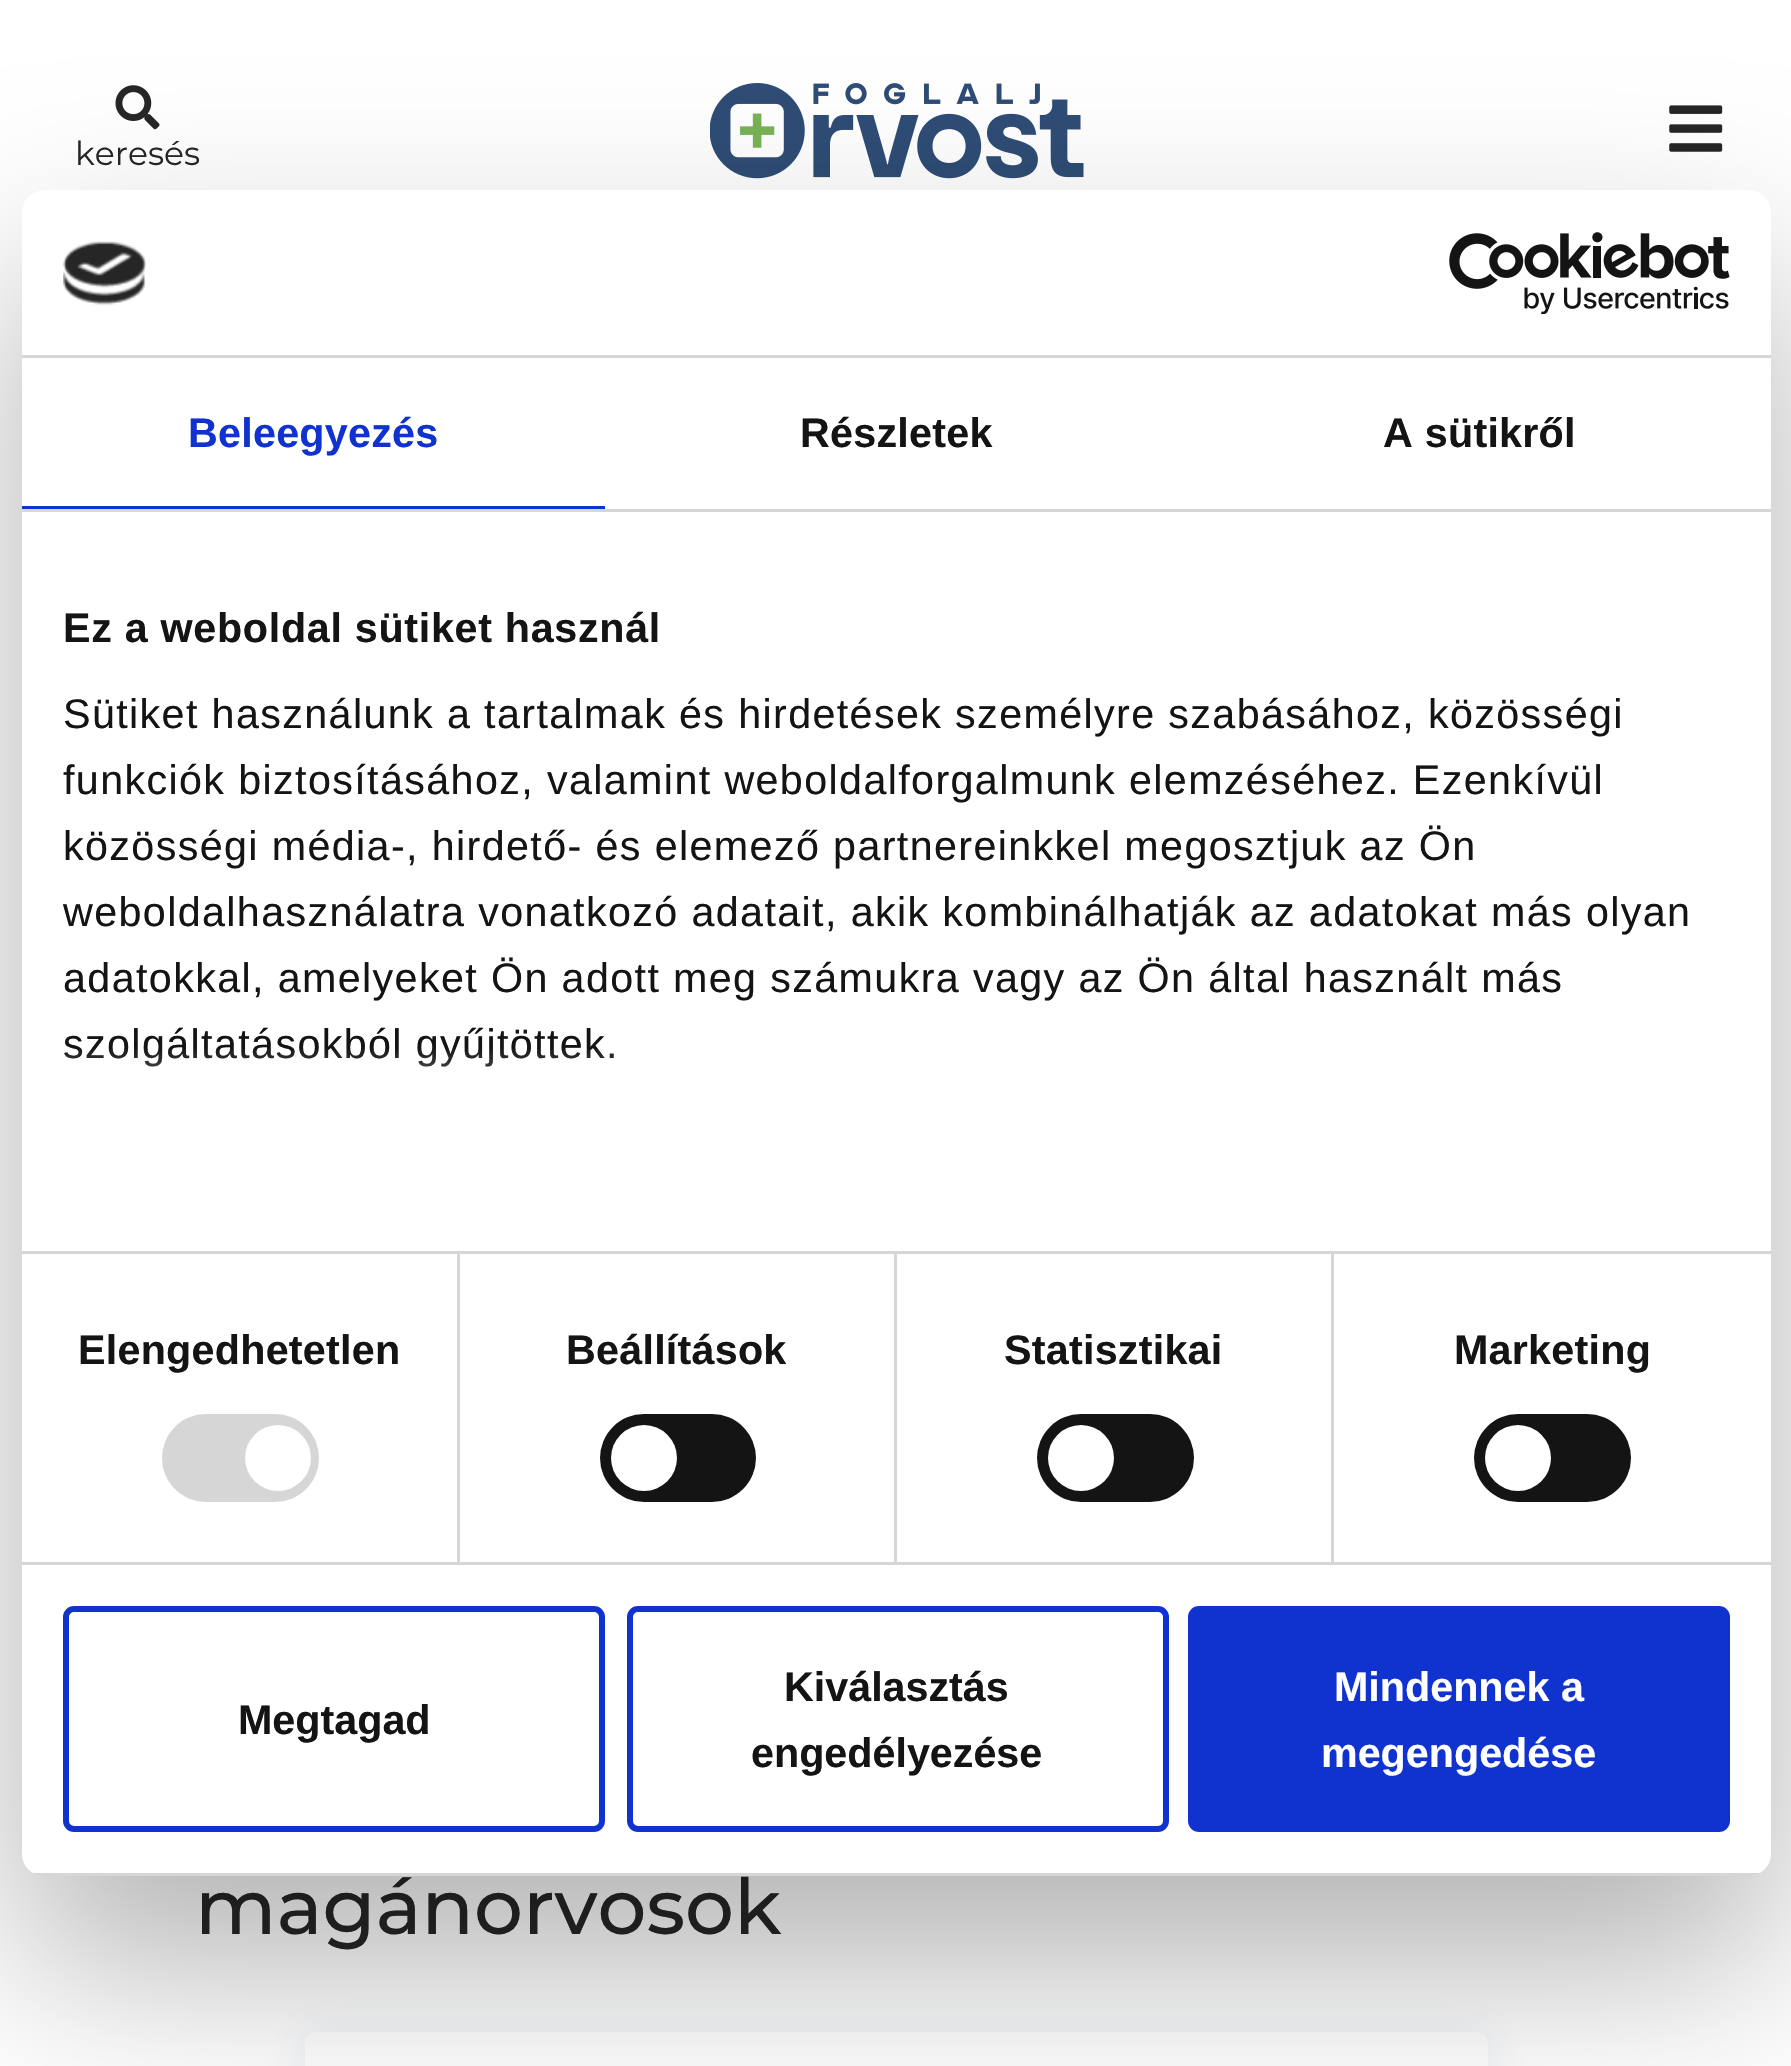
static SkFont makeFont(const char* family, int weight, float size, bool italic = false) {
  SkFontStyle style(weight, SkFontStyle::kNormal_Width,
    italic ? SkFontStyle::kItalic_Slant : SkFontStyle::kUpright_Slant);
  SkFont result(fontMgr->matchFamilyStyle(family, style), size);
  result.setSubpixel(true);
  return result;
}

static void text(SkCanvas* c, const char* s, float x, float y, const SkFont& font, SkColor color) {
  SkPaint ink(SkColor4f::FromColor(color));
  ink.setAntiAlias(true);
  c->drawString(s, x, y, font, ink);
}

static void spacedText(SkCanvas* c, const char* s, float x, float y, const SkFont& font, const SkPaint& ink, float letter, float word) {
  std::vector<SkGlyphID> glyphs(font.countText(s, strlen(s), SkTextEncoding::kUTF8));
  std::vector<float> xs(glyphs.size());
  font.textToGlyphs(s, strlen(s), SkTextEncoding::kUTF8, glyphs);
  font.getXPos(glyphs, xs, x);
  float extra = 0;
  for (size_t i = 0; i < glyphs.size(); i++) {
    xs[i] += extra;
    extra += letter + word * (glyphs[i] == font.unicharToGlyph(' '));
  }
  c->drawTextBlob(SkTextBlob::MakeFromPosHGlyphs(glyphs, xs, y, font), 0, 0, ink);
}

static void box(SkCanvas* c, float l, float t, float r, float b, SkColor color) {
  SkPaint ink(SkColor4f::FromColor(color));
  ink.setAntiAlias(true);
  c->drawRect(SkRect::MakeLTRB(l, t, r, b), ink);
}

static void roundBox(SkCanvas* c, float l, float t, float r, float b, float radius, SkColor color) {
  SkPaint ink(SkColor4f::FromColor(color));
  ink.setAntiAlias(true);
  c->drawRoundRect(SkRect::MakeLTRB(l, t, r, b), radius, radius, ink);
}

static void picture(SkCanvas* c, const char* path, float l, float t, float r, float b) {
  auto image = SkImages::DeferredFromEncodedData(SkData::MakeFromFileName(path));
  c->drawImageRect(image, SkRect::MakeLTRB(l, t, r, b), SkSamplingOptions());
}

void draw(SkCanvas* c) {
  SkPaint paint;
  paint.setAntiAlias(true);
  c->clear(0xffffffff);
  picture(c, "img_01.png", 115, 85, 160, 130);
  SkFont face1 = makeFont("Montserrat", 400, 33);
  text(c, "keresés", 75, 165, face1, 0xff262626);
  picture(c, "img_02.png", 710, 83, 1084, 179);
  picture(c, "img_03.png", 1669, 105, 1723, 152);
  SkFont face2 = makeFont("Montserrat", 500, 77);
  text(c, "magánorvosok", 195, 1934, face2, 0xff262626);
  paint.setColor(0x1a224d78);
  paint.setMaskFilter(SkMaskFilter::MakeBlur(kNormal_SkBlurStyle, 22));
  c->drawRoundRect(SkRect::MakeLTRB(305, 2035, 1488, 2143), 11, 11, paint);
  paint.setMaskFilter(nullptr);
  roundBox(c, 305, 2032, 1488, 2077, 11, 0xffffffff);
  paint.setColor(0x4d000000);
  paint.setMaskFilter(SkMaskFilter::MakeBlur(kNormal_SkBlurStyle, 93.5f));
  c->drawRoundRect(SkRect::MakeLTRB(22, 278, 1771, 1964), 22, 22, paint);
  paint.setMaskFilter(nullptr);
  roundBox(c, 22, 190, 1771, 1876, 22, 0xffffffff);
  box(c, 22, 355, 1771, 358, 0xffd6d6d6);
  picture(c, "img_04.png", 63, 241, 146, 305);
  picture(c, "img_05.png", 1449, 232, 1730, 314);
  box(c, 22, 509, 1771, 512, 0xffd6d6d6);
  box(c, 22, 506, 605, 509, 0xff1032cf);
  SkFont face3 = makeFont("Liberation Sans", 700, 41.25f);
  paint.setColor(0xff1032cf);
  spacedText(c, "Beleegyezés", 188, 447, face3, paint, 0.25f, 0);
  paint.setColor(0xff141414);
  spacedText(c, "Részletek", 800, 447, face3, paint, 0.25f, 0);
  spacedText(c, "A sütikről", 1383, 447, face3, paint, 0.25f, 0);
  box(c, 22, 1251, 1771, 1254, 0xffd6d6d6);
  spacedText(c, "Ez a weboldal sütiket használ", 63, 642, face3, paint, 0.7f, 0);
  SkFont face4 = makeFont("Liberation Sans", 400, 41.25f);
  spacedText(c, "Sütiket használunk a tartalmak és hirdetések személyre szabásához, közösségi", 63, 728, face4, paint, 1.38f, 0);
  spacedText(c, "funkciók biztosításához, valamint weboldalforgalmunk elemzéséhez. Ezenkívül", 63, 794, face4, paint, 1.38f, 0);
  spacedText(c, "közösségi média-, hirdető- és elemező partnereinkkel megosztjuk az Ön", 63, 860, face4, paint, 1.38f, 0);
  spacedText(c, "weboldalhasználatra vonatkozó adatait, akik kombinálhatják az adatokat más olyan", 63, 926, face4, paint, 1.38f, 0);
  spacedText(c, "adatokkal, amelyeket Ön adott meg számukra vagy az Ön által használt más", 63, 992, face4, paint, 1.38f, 0);
  spacedText(c, "szolgáltatásokból gyűjtöttek.", 63, 1058, face4, paint, 1.38f, 0);
  {
    const SkColor colors[] = {0xffffffff, 0xccffffff, 0x00ffffff};
    const float stops[] = {0, 0.5f, 1};
    const SkPoint ends[] = {{879, 1252}, {879, 1046}};
    paint.setShader(SkGradientShader::MakeLinear(ends, colors, stops, 3, SkTileMode::kClamp));
    paint.setAlpha(255);
  }
  c->drawRect(SkRect::MakeLTRB(64, 1049, 614, 1067), paint);
  box(c, 22, 1562, 1771, 1565, 0xffd6d6d6);
  box(c, 457, 1254, 460, 1562, 0xffd6d6d6);
  paint.setShader(nullptr);
  paint.setColor(0xff141414);
  spacedText(c, "Elengedhetetlen", 78, 1364, face3, paint, 0.25f, 0);
  roundBox(c, 162, 1414, 319, 1502, 44, 0xffd6d6d6);
  paint.setColor(0xffffffff);
  c->drawCircle(278, 1458, 33, paint);
  box(c, 894, 1254, 897, 1562, 0xffd6d6d6);
  paint.setColor(0xff141414);
  spacedText(c, "Beállítások", 566, 1364, face3, paint, 0.25f, 0);
  roundBox(c, 600, 1414, 756, 1502, 44, 0xff141414);
  paint.setColor(0xffffffff);
  c->drawCircle(644, 1458, 33, paint);
  box(c, 1331, 1254, 1334, 1562, 0xffd6d6d6);
  paint.setColor(0xff141414);
  spacedText(c, "Statisztikai", 1004, 1364, face3, paint, 0.25f, 0);
  roundBox(c, 1037, 1414, 1194, 1502, 44, 0xff141414);
  paint.setColor(0xffffffff);
  c->drawCircle(1081, 1458, 33, paint);
  paint.setColor(0xff141414);
  spacedText(c, "Marketing", 1454, 1364, face3, paint, 0.25f, 0);
  roundBox(c, 1474, 1414, 1631, 1502, 44, 0xff141414);
  paint.setColor(0xffffffff);
  c->drawCircle(1518, 1458, 33, paint);
  c->save();
  c->clipPath(SkPathBuilder().moveTo(44, 190).lineTo(1749, 190).cubicTo(1761, 190, 1771, 200, 1771, 212).lineTo(1771, 1854).cubicTo(1771, 1866, 1761, 1876, 1749, 1876).lineTo(44, 1876).cubicTo(32, 1876, 22, 1866, 22, 1854).lineTo(22, 212).cubicTo(22, 200, 32, 190, 44, 190).close().detach(), true);
  box(c, 33, 1873, 1760, 1876, 0xffd6d6d6);
  c->restore();
  paint.setStyle(SkPaint::kStroke_Style);
  paint.setStrokeWidth(6);
  paint.setColor(0xff1032cf);
  c->drawRoundRect(SkRect::MakeLTRB(66, 1609, 602, 1829), 8, 8, paint);
  text(c, "Megtagad", 238, 1734, face3, 0xff141414);
  c->drawRoundRect(SkRect::MakeLTRB(630, 1609, 1166, 1829), 8, 8, paint);
  text(c, "Kiválasztás", 784, 1701, face3, 0xff141414);
  text(c, "engedélyezése", 751, 1767, face3, 0xff141414);
  paint.setStyle(SkPaint::kFill_Style);
  c->drawRoundRect(SkRect::MakeLTRB(1191, 1609, 1727, 1829), 8, 8, paint);
  paint.setStyle(SkPaint::kStroke_Style);
  c->drawRoundRect(SkRect::MakeLTRB(1191, 1609, 1727, 1829), 8, 8, paint);
  text(c, "Mindennek a", 1334, 1701, face3, 0xffffffff);
  text(c, "megengedése", 1321, 1767, face3, 0xffffffff);
}
